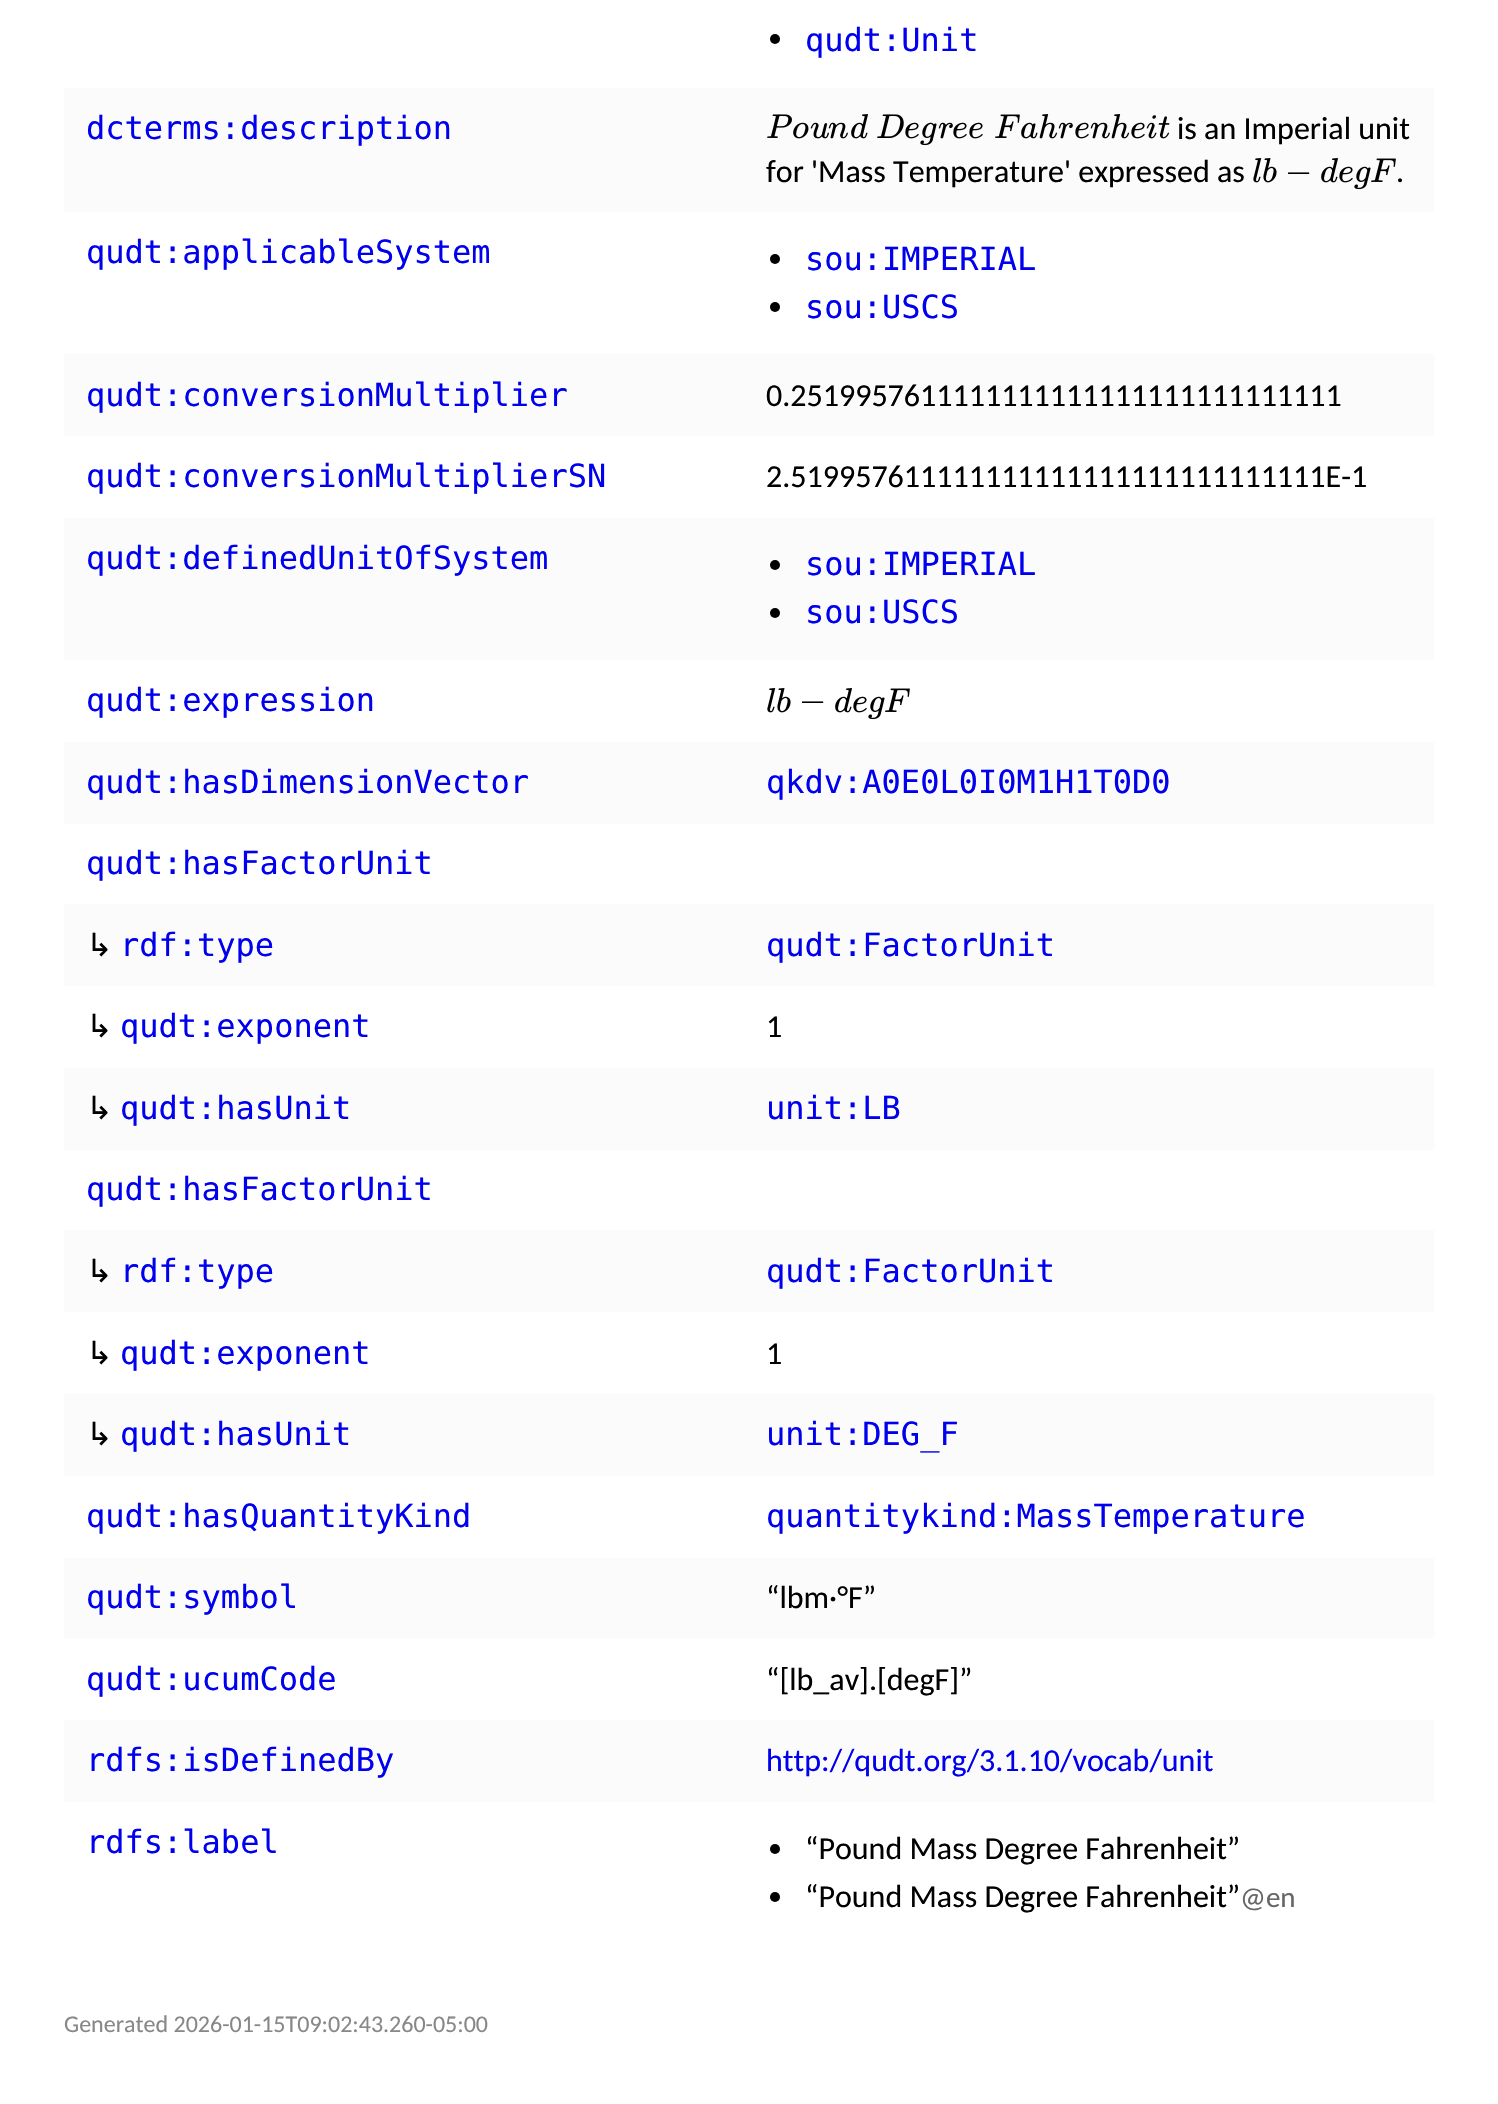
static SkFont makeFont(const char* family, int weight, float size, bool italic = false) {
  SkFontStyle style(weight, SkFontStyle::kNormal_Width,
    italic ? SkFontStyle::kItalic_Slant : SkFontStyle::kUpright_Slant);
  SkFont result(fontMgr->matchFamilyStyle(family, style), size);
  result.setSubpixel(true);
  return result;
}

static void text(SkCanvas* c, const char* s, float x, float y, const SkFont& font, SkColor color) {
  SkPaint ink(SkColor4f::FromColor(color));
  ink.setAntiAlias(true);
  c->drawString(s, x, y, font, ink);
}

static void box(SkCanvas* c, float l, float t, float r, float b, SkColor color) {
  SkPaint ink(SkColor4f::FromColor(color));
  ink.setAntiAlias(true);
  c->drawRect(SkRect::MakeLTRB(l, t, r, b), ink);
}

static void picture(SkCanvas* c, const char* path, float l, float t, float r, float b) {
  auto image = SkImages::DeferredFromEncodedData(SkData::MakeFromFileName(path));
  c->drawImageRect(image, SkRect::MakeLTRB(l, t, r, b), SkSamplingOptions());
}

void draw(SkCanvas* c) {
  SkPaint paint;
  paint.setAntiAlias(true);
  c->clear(0xffffffff);
  paint.setColor(0xff000000);
  c->drawCircle(775, 39, 5, paint);
  SkFont face1 = makeFont("DejaVu Sans Mono", 400, 32);
  text(c, "qudt:Unit", 805, 51, face1, 0xff0000ee);
  box(c, 64, 88, 1434, 212, 0xfffbfbfb);
  text(c, "dcterms:description", 86, 139, face1, 0xff0000ee);
  picture(c, "img_01.png", 767, 114, 792, 138);
  picture(c, "img_02.png", 793, 122, 809, 139);
  picture(c, "img_03.png", 810, 122, 829, 139);
  picture(c, "img_04.png", 828, 122, 848, 139);
  picture(c, "img_05.png", 851, 114, 868, 139);
  picture(c, "img_06.png", 877, 114, 904, 138);
  picture(c, "img_07.png", 905, 122, 919, 139);
  picture(c, "img_08.png", 920, 122, 937, 146);
  picture(c, "img_09.png", 938, 122, 953, 139);
  picture(c, "img_07.png", 953, 122, 967, 139);
  picture(c, "img_07.png", 969, 122, 983, 139);
  picture(c, "img_10.png", 995, 114, 1020, 138);
  picture(c, "img_11.png", 1021, 122, 1038, 139);
  picture(c, "img_12.png", 1039, 114, 1058, 139);
  picture(c, "img_09.png", 1058, 122, 1073, 139);
  picture(c, "img_07.png", 1075, 122, 1089, 139);
  picture(c, "img_13.png", 1090, 122, 1110, 139);
  picture(c, "img_12.png", 1111, 114, 1130, 139);
  picture(c, "img_07.png", 1131, 122, 1145, 139);
  picture(c, "img_14.png", 1146, 115, 1157, 139);
  picture(c, "img_15.png", 1158, 116, 1170, 139);
  SkFont face2 = makeFont("Carlito", 400, 32);
  text(c, "is an Imperial unit", 1177, 139, face2, 0xff000000);
  text(c, "for 'Mass Temperature' expressed as", 766, 182, face2, 0xff000000);
  picture(c, "img_16.png", 1253, 158, 1262, 183);
  picture(c, "img_17.png", 1263, 158, 1277, 183);
  SkFont face3 = makeFont("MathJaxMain", 400, 35);
  text(c, "−", 1285, 182, face3, 0xff000000);
  picture(c, "img_05.png", 1321, 158, 1338, 183);
  picture(c, "img_07.png", 1339, 166, 1353, 183);
  picture(c, "img_08.png", 1354, 166, 1371, 190);
  picture(c, "img_10.png", 1371, 158, 1396, 182);
  text(c, ".", 1396, 182, face2, 0xff000000);
  text(c, "qudt:applicableSystem", 86, 263, face1, 0xff0000ee);
  c->drawCircle(775, 259, 5, paint);
  text(c, "sou:IMPERIAL", 805, 270, face1, 0xff0000ee);
  c->drawCircle(775, 307, 5, paint);
  text(c, "sou:USCS", 805, 318, face1, 0xff0000ee);
  box(c, 64, 354, 1434, 436, 0xfffbfbfb);
  text(c, "qudt:conversionMultiplier", 86, 406, face1, 0xff0000ee);
  text(c, "0.2519957611111111111111111111111111", 766, 406, face2, 0xff000000);
  text(c, "qudt:conversionMultiplierSN", 86, 487, face1, 0xff0000ee);
  text(c, "2.519957611111111111111111111111111E-1", 766, 487, face2, 0xff000000);
  box(c, 64, 518, 1434, 660, 0xfffbfbfb);
  text(c, "qudt:definedUnitOfSystem", 86, 569, face1, 0xff0000ee);
  c->drawCircle(775, 565, 5, paint);
  text(c, "sou:IMPERIAL", 805, 575, face1, 0xff0000ee);
  c->drawCircle(775, 613, 5, paint);
  text(c, "sou:USCS", 805, 623, face1, 0xff0000ee);
  text(c, "qudt:expression", 86, 711, face1, 0xff0000ee);
  picture(c, "img_18.png", 767, 688, 776, 713);
  picture(c, "img_19.png", 777, 688, 791, 713);
  text(c, "−", 799, 711, face3, 0xff000000);
  picture(c, "img_20.png", 835, 688, 852, 713);
  picture(c, "img_21.png", 853, 696, 867, 713);
  picture(c, "img_22.png", 868, 696, 885, 720);
  picture(c, "img_23.png", 885, 688, 910, 712);
  box(c, 64, 742, 1434, 824, 0xfffbfbfb);
  text(c, "qudt:hasDimensionVector", 86, 793, face1, 0xff0000ee);
  text(c, "qkdv:A0E0L0I0M1H1T0D0", 766, 793, face1, 0xff0000ee);
  text(c, "qudt:hasFactorUnit", 86, 874, face1, 0xff0000ee);
  box(c, 64, 904, 1434, 986, 0xfffbfbfb);
  SkFont face4 = makeFont("DejaVu Sans", 400, 32);
  text(c, "↳", 86, 956, face4, 0xff000000);
  text(c, "rdf:type", 120, 956, face1, 0xff0000ee);
  text(c, "qudt:FactorUnit", 766, 956, face1, 0xff0000ee);
  text(c, "↳", 86, 1037, face4, 0xff000000);
  text(c, "qudt:exponent", 120, 1037, face1, 0xff0000ee);
  text(c, "1", 766, 1037, face2, 0xff000000);
  box(c, 64, 1068, 1434, 1150, 0xfffbfbfb);
  text(c, "↳", 86, 1119, face4, 0xff000000);
  text(c, "qudt:hasUnit", 120, 1119, face1, 0xff0000ee);
  text(c, "unit:LB", 766, 1119, face1, 0xff0000ee);
  text(c, "qudt:hasFactorUnit", 86, 1200, face1, 0xff0000ee);
  box(c, 64, 1230, 1434, 1312, 0xfffbfbfb);
  text(c, "↳", 86, 1282, face4, 0xff000000);
  text(c, "rdf:type", 120, 1282, face1, 0xff0000ee);
  text(c, "qudt:FactorUnit", 766, 1282, face1, 0xff0000ee);
  text(c, "↳", 86, 1364, face4, 0xff000000);
  text(c, "qudt:exponent", 120, 1364, face1, 0xff0000ee);
  text(c, "1", 766, 1364, face2, 0xff000000);
  box(c, 64, 1394, 1434, 1476, 0xfffbfbfb);
  text(c, "↳", 86, 1445, face4, 0xff000000);
  text(c, "qudt:hasUnit", 120, 1445, face1, 0xff0000ee);
  text(c, "unit:DEG_F", 766, 1445, face1, 0xff0000ee);
  text(c, "qudt:hasQuantityKind", 86, 1527, face1, 0xff0000ee);
  text(c, "quantitykind:MassTemperature", 766, 1527, face1, 0xff0000ee);
  box(c, 64, 1558, 1434, 1638, 0xfffbfbfb);
  text(c, "qudt:symbol", 86, 1608, face1, 0xff0000ee);
  text(c, "“lbm·°F”", 766, 1608, face2, 0xff000000);
  text(c, "qudt:ucumCode", 86, 1690, face1, 0xff0000ee);
  text(c, "“[lb_av].[degF]”", 766, 1690, face2, 0xff000000);
  box(c, 64, 1720, 1434, 1802, 0xfffbfbfb);
  text(c, "rdfs:isDefinedBy", 86, 1771, face1, 0xff0000ee);
  text(c, "http://qudt.org/3.1.10/vocab/unit", 766, 1771, face2, 0xff0000ee);
  text(c, "rdfs:label", 86, 1853, face1, 0xff0000ee);
  c->drawCircle(775, 1849, 5, paint);
  text(c, "“Pound Mass Degree Fahrenheit”", 805, 1859, face2, 0xff000000);
  c->drawCircle(775, 1897, 5, paint);
  text(c, "“Pound Mass Degree Fahrenheit”", 805, 1907, face2, 0xff000000);
  SkFont face5 = makeFont("Carlito", 400, 29);
  text(c, "@en", 1240, 1907, face5, 0xff666666);
  SkFont face6 = makeFont("Carlito", 400, 24);
  text(c, "Generated 2026-01-15T09:02:43.260-05:00", 64, 2032, face6, 0xff888888);
}
